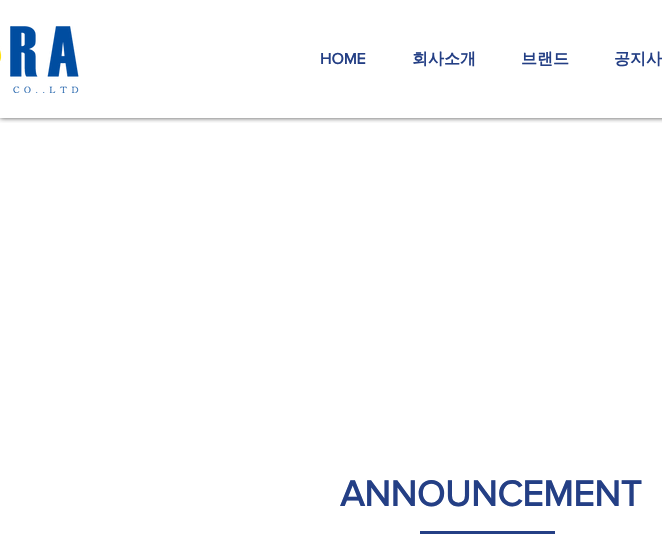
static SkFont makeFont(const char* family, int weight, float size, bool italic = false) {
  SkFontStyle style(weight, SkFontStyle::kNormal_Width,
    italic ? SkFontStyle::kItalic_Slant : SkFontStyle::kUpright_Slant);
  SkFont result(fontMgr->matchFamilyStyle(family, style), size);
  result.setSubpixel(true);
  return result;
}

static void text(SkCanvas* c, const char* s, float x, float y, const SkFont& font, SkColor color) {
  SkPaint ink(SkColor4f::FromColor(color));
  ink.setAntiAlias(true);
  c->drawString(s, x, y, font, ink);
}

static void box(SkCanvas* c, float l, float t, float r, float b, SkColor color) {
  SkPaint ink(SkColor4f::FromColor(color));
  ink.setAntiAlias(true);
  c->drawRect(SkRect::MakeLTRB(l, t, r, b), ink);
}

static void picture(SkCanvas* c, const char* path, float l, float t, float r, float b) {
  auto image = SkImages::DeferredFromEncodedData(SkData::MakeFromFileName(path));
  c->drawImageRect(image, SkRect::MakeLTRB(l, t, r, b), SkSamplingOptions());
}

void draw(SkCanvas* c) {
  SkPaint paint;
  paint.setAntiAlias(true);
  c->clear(0xffffffff);
  c->save();
  c->clipRect(SkRect::MakeLTRB(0, 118, 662, 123));
  paint.setColor(0xb3000000);
  paint.setMaskFilter(SkMaskFilter::MakeBlur(kNormal_SkBlurStyle, 2.5f));
  c->drawRect(SkRect::MakeLTRB(0, 0, 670, 118), paint);
  paint.setMaskFilter(nullptr);
  c->restore();
  picture(c, "img_01.png", 0, 26, 79, 93);
  SkFont face1 = makeFont("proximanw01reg", 700, 16);
  text(c, "HOME", 320, 64, face1, 0xff243f85);
  SkFont face2 = makeFont("WenQuanYi Zen Hei", 700, 16);
  text(c, "회사소개", 412, 64, face2, 0xff243f85);
  text(c, "브랜드", 521, 64, face2, 0xff243f85);
  text(c, "공지사", 614, 64, face2, 0xff243f85);
  SkFont face3 = makeFont("proximanw01reg", 700, 37);
  text(c, "ANNOUNCEMENT", 340, 506, face3, 0xff243f85);
  box(c, 420, 531, 555, 534, 0xff243f85);
}
